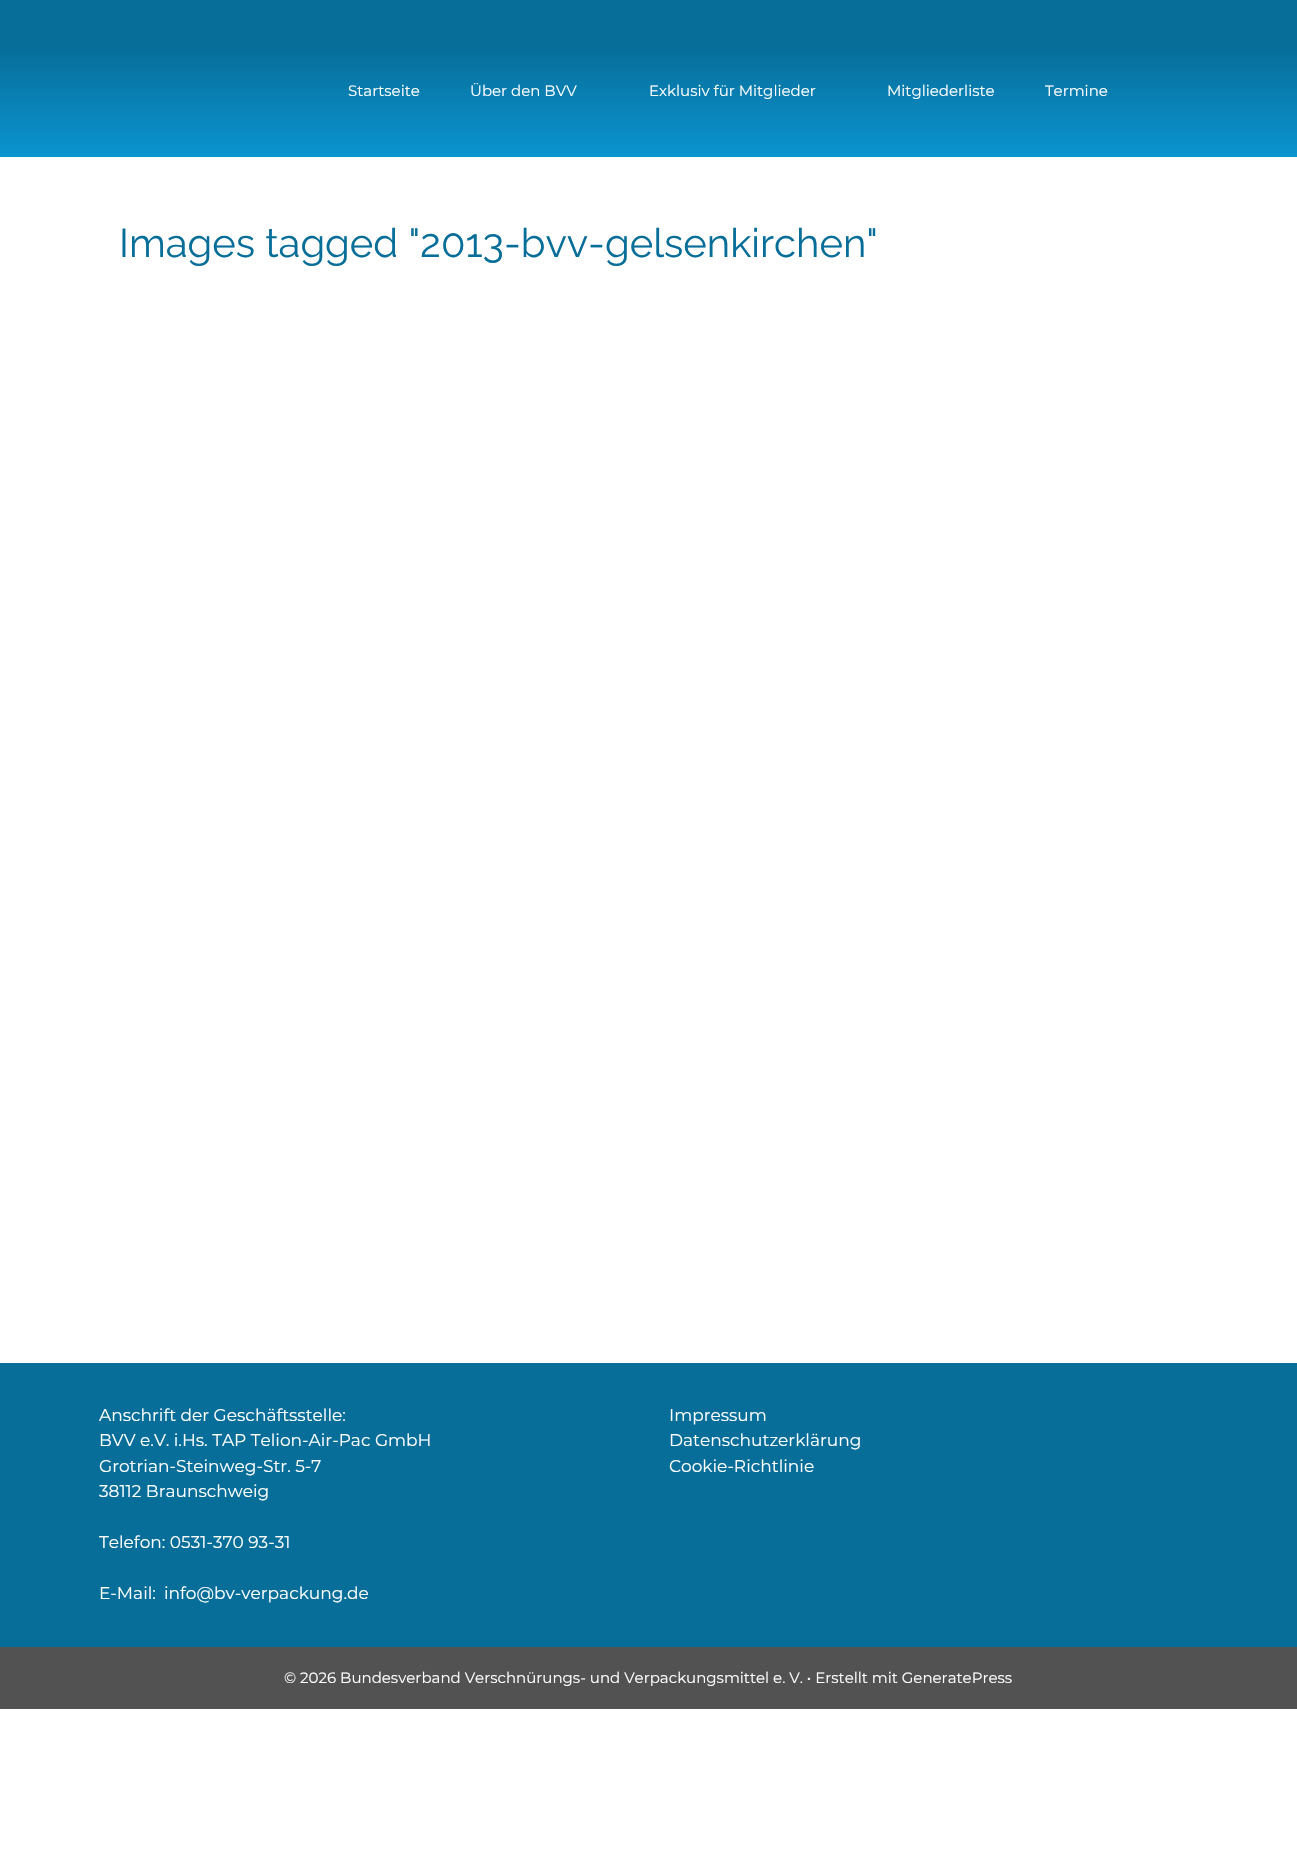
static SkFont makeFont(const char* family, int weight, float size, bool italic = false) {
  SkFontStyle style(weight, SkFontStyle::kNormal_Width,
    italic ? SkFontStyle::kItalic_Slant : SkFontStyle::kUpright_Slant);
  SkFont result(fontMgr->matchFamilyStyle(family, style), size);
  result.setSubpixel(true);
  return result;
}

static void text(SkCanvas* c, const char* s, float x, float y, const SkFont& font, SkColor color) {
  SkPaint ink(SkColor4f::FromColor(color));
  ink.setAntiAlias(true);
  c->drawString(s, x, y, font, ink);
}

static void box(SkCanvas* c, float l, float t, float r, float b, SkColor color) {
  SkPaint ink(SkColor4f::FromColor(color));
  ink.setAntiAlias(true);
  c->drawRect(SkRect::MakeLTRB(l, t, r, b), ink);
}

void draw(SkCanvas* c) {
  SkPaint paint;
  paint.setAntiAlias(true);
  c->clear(0xffffffff);
  {
    const SkColor colors[] = {0xff076e9a, 0xff0b94cf};
    const float stops[] = {0.3f, 1};
    const SkPoint ends[] = {{649, 0}, {649, 157}};
    paint.setShader(SkGradientShader::MakeLinear(ends, colors, stops, 2, SkTileMode::kClamp));
    paint.setAlpha(255);
  }
  c->drawRect(SkRect::MakeLTRB(0, 0, 1297, 157), paint);
  SkFont face1 = makeFont("Montserrat", 400, 15);
  text(c, "Startseite", 348, 96, face1, 0xffffffff);
  text(c, "Über den BVV", 470, 96, face1, 0xffffffff);
  text(c, "Exklusiv für Mitglieder", 649, 96, face1, 0xffffffff);
  text(c, "Mitgliederliste", 887, 96, face1, 0xffffffff);
  text(c, "Termine", 1045, 96, face1, 0xffffffff);
  SkFont face2 = makeFont("Raleway", 400, 40);
  text(c, "Images tagged \"2013-bvv-gelsenkirchen\"", 119, 257, face2, 0xff076e9a);
  box(c, 0, 1363, 1297, 1647, 0xff076e9a);
  SkFont face3 = makeFont("Montserrat", 400, 17);
  text(c, "Anschrift der Geschäftsstelle:", 99, 1421, face3, 0xffffffff);
  text(c, "BVV e.V. i.Hs. TAP Telion-Air-Pac GmbH", 99, 1446, face3, 0xffffffff);
  text(c, "Grotrian-Steinweg-Str. 5-7", 99, 1472, face3, 0xffffffff);
  text(c, "38112 Braunschweig", 99, 1497, face3, 0xffffffff);
  text(c, "Telefon: 0531-370 93-31", 99, 1548, face3, 0xffffffff);
  text(c, "E-Mail:", 99, 1599, face3, 0xffffffff);
  text(c, "info@bv-verpackung.de", 164, 1599, face3, 0xffffffff);
  text(c, "Impressum", 669, 1421, face3, 0xffffffff);
  text(c, "Datenschutzerklärung", 669, 1446, face3, 0xffffffff);
  text(c, "Cookie-Richtlinie", 669, 1472, face3, 0xffffffff);
  box(c, 0, 1647, 1297, 1709, 0xff525252);
  text(c, "© 2026 Bundesverband Verschnürungs- und Verpackungsmittel e. V. • Erstellt mit GeneratePress", 284, 1683, face1, 0xffffffff);
}
